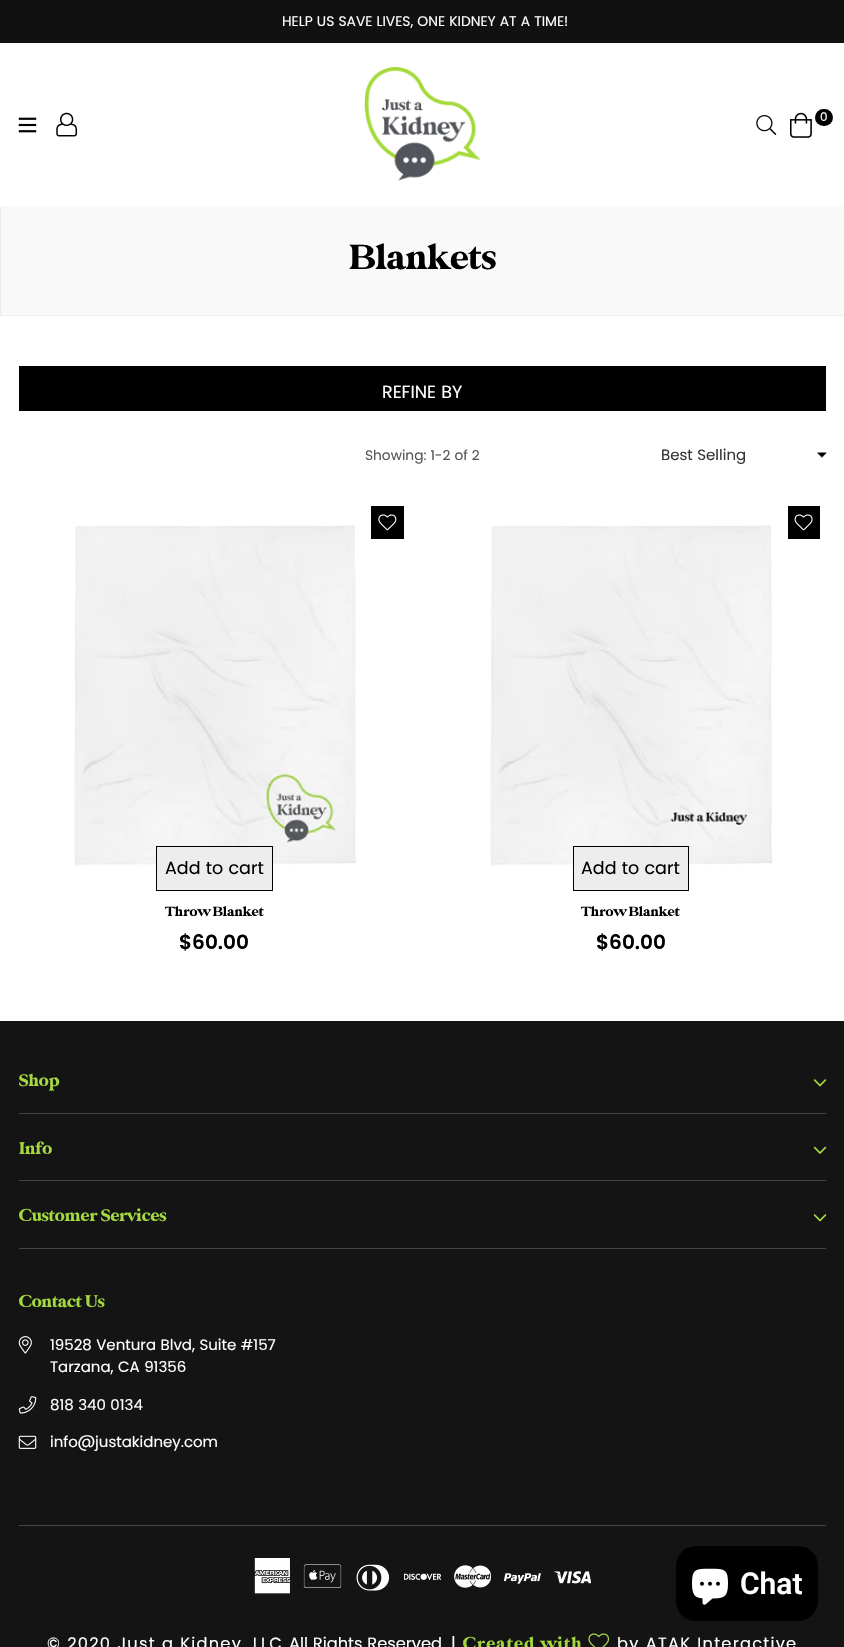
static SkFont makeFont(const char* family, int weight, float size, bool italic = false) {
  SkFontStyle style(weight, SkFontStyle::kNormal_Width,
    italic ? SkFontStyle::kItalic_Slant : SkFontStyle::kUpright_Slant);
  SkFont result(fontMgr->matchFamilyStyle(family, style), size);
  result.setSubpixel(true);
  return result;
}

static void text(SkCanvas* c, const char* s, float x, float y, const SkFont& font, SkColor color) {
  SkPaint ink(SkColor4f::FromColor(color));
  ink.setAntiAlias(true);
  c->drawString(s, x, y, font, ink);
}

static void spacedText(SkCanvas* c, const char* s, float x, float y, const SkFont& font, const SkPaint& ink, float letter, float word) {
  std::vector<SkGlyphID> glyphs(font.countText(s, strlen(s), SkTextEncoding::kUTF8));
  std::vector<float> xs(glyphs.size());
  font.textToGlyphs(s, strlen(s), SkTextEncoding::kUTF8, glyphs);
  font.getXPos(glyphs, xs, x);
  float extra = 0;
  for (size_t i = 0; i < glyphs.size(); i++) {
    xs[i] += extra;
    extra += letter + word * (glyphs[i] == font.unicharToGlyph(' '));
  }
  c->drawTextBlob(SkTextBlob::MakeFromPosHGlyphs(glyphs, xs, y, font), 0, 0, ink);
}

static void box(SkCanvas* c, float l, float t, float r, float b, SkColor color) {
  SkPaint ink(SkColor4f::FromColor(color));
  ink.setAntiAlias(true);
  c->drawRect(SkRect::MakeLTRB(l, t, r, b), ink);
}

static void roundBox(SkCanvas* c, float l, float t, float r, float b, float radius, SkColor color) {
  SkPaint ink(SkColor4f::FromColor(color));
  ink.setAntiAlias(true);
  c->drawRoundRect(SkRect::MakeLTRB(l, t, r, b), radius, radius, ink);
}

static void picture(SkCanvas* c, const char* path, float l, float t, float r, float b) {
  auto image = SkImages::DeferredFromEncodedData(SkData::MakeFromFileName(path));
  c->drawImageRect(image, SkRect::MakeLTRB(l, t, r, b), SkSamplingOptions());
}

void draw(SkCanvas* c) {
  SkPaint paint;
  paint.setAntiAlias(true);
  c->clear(0xffffffff);
  box(c, 0, 0, 844, 43, 0xff111111);
  SkFont face1 = makeFont("Poppins", 400, 13.85f);
  text(c, "HELP US SAVE LIVES, ONE KIDNEY AT A TIME!", 282, 26, face1, 0xffffffff);
  picture(c, "img_01.png", 18, 117, 37, 133);
  picture(c, "img_02.png", 56, 112, 78, 137);
  picture(c, "img_03.png", 364, 67, 481, 181);
  picture(c, "img_04.png", 756, 115, 777, 135);
  picture(c, "img_05.png", 790, 112, 812, 138);
  roundBox(c, 815, 109, 833, 126, 8.5f, 0xff000000);
  SkFont face2 = makeFont("Poppins", 400, 12);
  text(c, "0", 820, 121, face2, 0xffffffff);
  box(c, 1, 206, 844, 315, 0xfff9f9f9);
  box(c, 0, 315, 844, 316, 0xffeeeeee);
  box(c, 0, 206, 1, 316, 0xffeeeeee);
  SkFont face3 = makeFont("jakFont", 400, 39);
  text(c, "Blankets", 350, 269, face3, 0xff000000);
  box(c, 19, 366, 826, 411, 0xff000000);
  SkFont face4 = makeFont("Poppins", 400, 17.5f);
  text(c, "REFINE BY", 382, 398, face4, 0xffffffff);
  SkFont face5 = makeFont("Poppins", 400, 13.75f);
  text(c, "Showing: 1-2 of 2", 365, 460, face5, 0xff555555);
  picture(c, "img_06.png", 817, 452, 827, 458);
  SkFont face6 = makeFont("Poppins", 400, 15);
  text(c, "Best Selling", 661, 460, face6, 0xff333333);
  picture(c, "img_07.png", 74, 525, 357, 866);
  box(c, 371, 506, 404, 539, 0xff000000);
  picture(c, "img_08.png", 378, 514, 397, 531);
  paint.setColor(0xffededed);
  c->drawRect(SkRect::MakeLTRB(156.5f, 846.5f, 272.5f, 890.5f), paint);
  paint.setStyle(SkPaint::kStroke_Style);
  paint.setStrokeWidth(1);
  paint.setColor(0xff000000);
  c->drawRect(SkRect::MakeLTRB(156.5f, 846.5f, 272.5f, 890.5f), paint);
  text(c, "Add to cart", 165, 874, face4, 0xff000000);
  SkFont face7 = makeFont("jakFont", 400, 15);
  text(c, "Throw Blanket", 165, 916, face7, 0xff000000);
  SkFont face8 = makeFont("Poppins", 600, 20);
  text(c, "$60.00", 179, 949, face8, 0xff000000);
  picture(c, "img_09.png", 490, 525, 774, 866);
  box(c, 788, 506, 820, 539, 0xff000000);
  picture(c, "img_10.png", 794, 514, 813, 531);
  paint.setStyle(SkPaint::kFill_Style);
  paint.setColor(0xffededed);
  c->drawRect(SkRect::MakeLTRB(573.5f, 846.5f, 688.5f, 890.5f), paint);
  paint.setStyle(SkPaint::kStroke_Style);
  paint.setColor(0xff000000);
  c->drawRect(SkRect::MakeLTRB(573.5f, 846.5f, 688.5f, 890.5f), paint);
  text(c, "Add to cart", 581, 874, face4, 0xff000000);
  text(c, "Throw Blanket", 581, 916, face7, 0xff000000);
  text(c, "$60.00", 596, 949, face8, 0xff000000);
  box(c, 0, 1021, 844, 1647, 0xff141414);
  SkFont face9 = makeFont("jakFont", 400, 18.75f);
  text(c, "Shop", 19, 1086, face9, 0xffa5d93f);
  picture(c, "img_11.png", 813, 1079, 827, 1087);
  box(c, 19, 1113, 826, 1114, 0xff454545);
  text(c, "Info", 19, 1154, face9, 0xffa5d93f);
  picture(c, "img_12.png", 813, 1146, 827, 1154);
  box(c, 19, 1180, 826, 1181, 0xff454545);
  text(c, "Customer Services", 19, 1221, face9, 0xffa5d93f);
  picture(c, "img_11.png", 813, 1214, 827, 1222);
  box(c, 19, 1248, 826, 1249, 0xff454545);
  text(c, "Contact Us", 19, 1307, face9, 0xffa5d93f);
  picture(c, "img_13.png", 18, 1336, 32, 1354);
  text(c, "19528 Ventura Blvd, Suite #157", 50, 1350, face6, 0xffffffff);
  text(c, "Tarzana, CA 91356", 50, 1372, face6, 0xffffffff);
  picture(c, "img_14.png", 18, 1396, 37, 1414);
  text(c, "818 340 0134", 50, 1410, face6, 0xffffffff);
  picture(c, "img_15.png", 18, 1435, 37, 1449);
  text(c, "info@justakidney.com", 50, 1447, face6, 0xffffffff);
  box(c, 19, 1525, 826, 1526, 0xff454545);
  picture(c, "img_16.png", 254, 1558, 291, 1594);
  picture(c, "img_17.png", 303, 1564, 342, 1588);
  picture(c, "img_18.png", 356, 1564, 390, 1591);
  picture(c, "img_19.png", 404, 1573, 441, 1580);
  picture(c, "img_20.png", 454, 1565, 491, 1588);
  picture(c, "img_21.png", 504, 1573, 541, 1584);
  picture(c, "img_22.png", 554, 1571, 591, 1584);
  SkFont face10 = makeFont("Poppins", 400, 16.25f);
  paint.setStyle(SkPaint::kFill_Style);
  paint.setColor(0xffffffff);
  spacedText(c, "© 2020 Just a Kidney, LLC", 47, 1649, face10, paint, 1.25f, 0);
  text(c, "All Rights Reserved", 289, 1649, face10, 0xffffffff);
  spacedText(c, "|", 451, 1649, face10, paint, 1.25f, 0);
  paint.setColor(0xffa5d93f);
  spacedText(c, "Created with", 463, 1649, face9, paint, 1.25f, 0);
  picture(c, "img_23.png", 588, 1633, 610, 1647);
  paint.setColor(0xffffffff);
  spacedText(c, "by ATAK Interactive", 617, 1649, face10, paint, 1.25f, 0);
  roundBox(c, 676, 1546, 818, 1621, 20, 0xff000000);
  picture(c, "img_24.png", 692, 1568, 728, 1605);
  SkFont face11 = makeFont("Roboto", 600, 30);
  text(c, "Chat", 740, 1594, face11, 0xffffffff);
}
